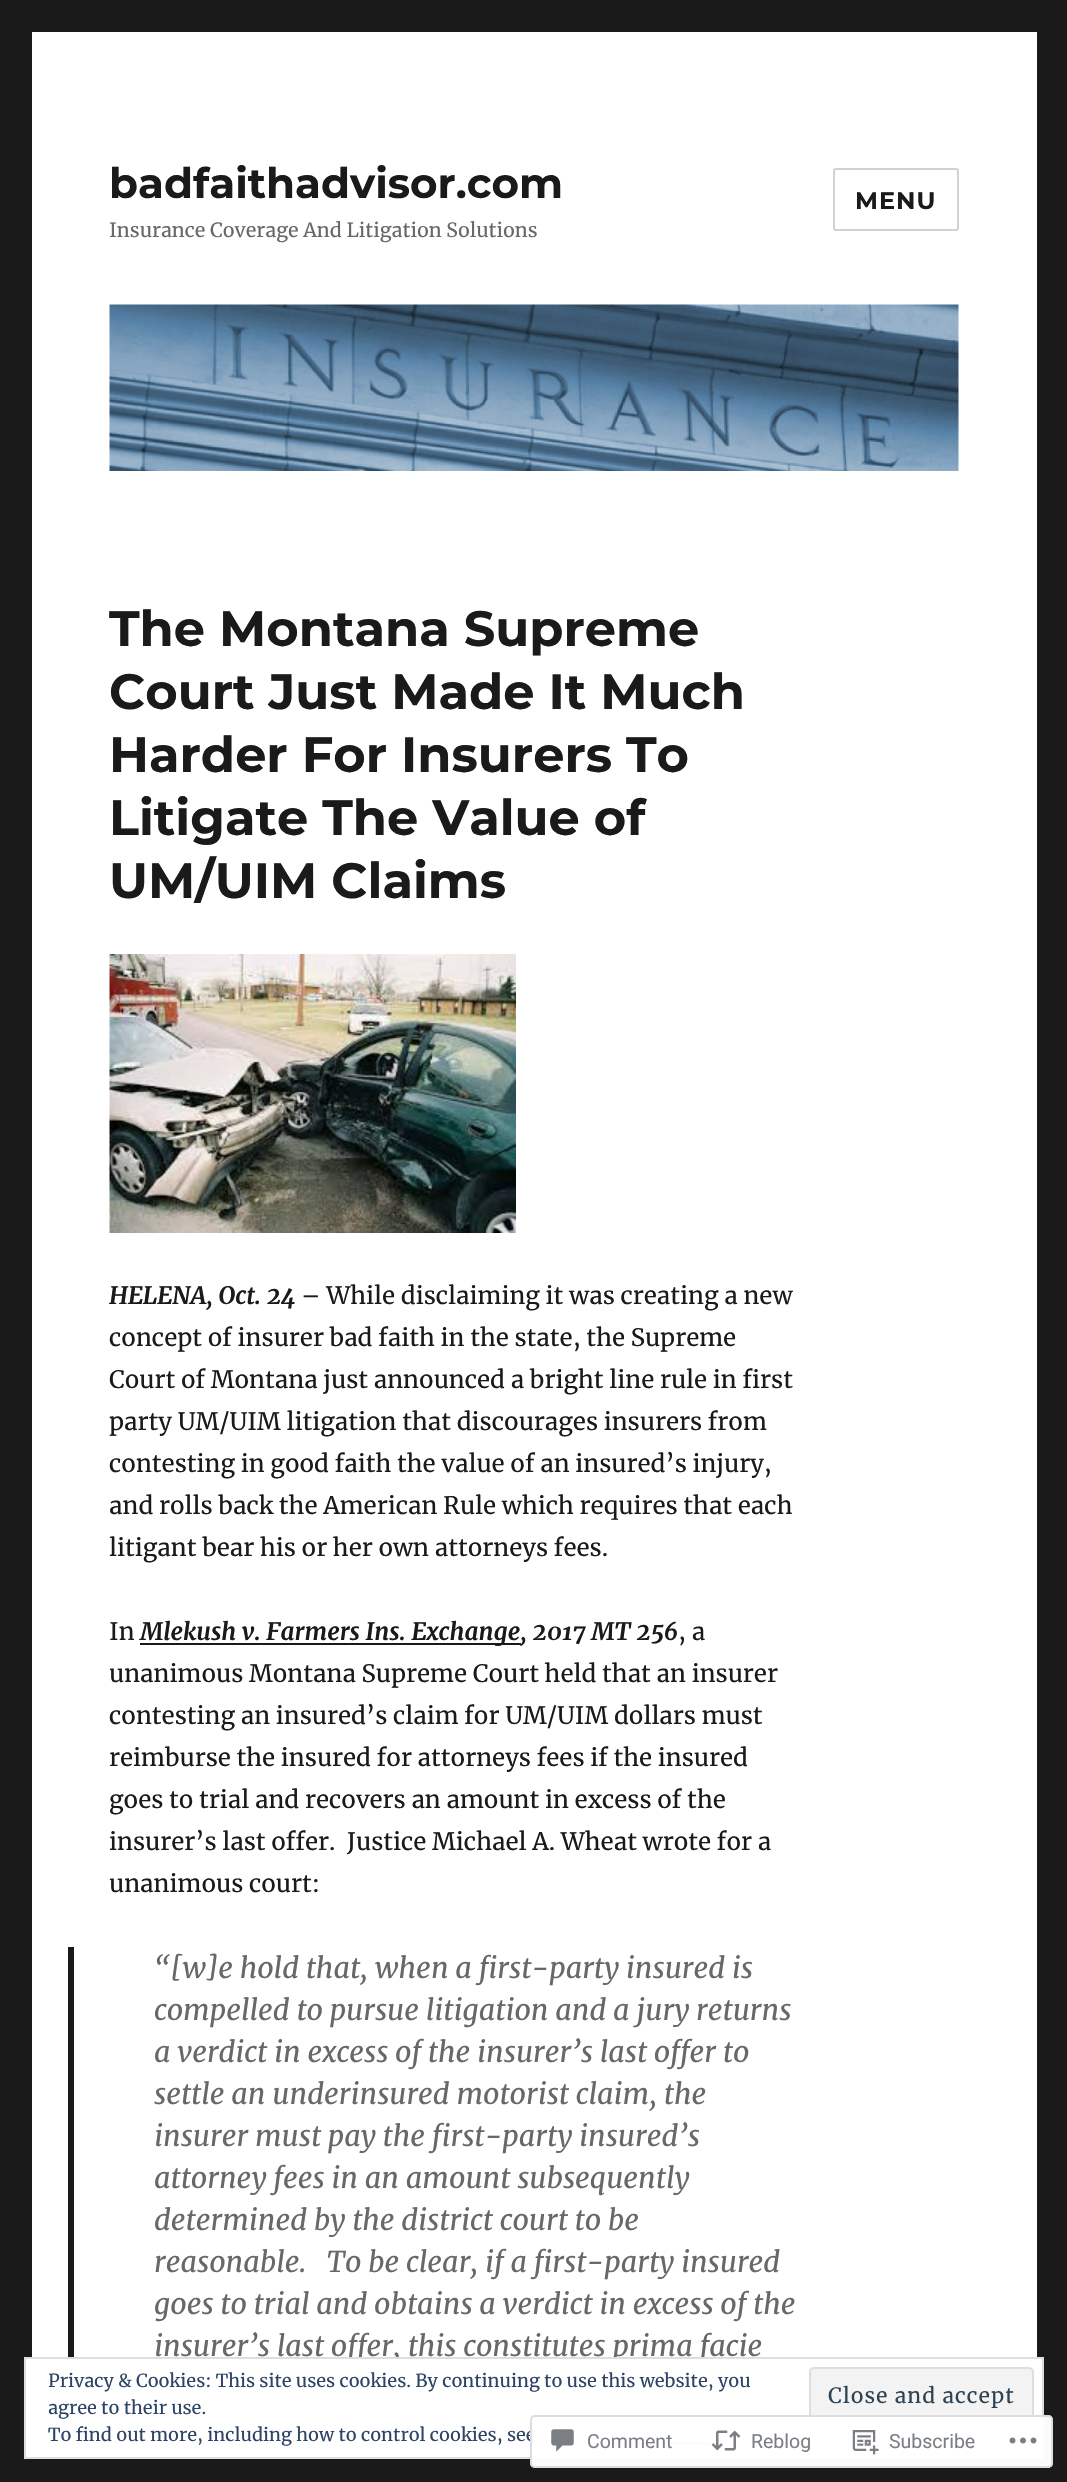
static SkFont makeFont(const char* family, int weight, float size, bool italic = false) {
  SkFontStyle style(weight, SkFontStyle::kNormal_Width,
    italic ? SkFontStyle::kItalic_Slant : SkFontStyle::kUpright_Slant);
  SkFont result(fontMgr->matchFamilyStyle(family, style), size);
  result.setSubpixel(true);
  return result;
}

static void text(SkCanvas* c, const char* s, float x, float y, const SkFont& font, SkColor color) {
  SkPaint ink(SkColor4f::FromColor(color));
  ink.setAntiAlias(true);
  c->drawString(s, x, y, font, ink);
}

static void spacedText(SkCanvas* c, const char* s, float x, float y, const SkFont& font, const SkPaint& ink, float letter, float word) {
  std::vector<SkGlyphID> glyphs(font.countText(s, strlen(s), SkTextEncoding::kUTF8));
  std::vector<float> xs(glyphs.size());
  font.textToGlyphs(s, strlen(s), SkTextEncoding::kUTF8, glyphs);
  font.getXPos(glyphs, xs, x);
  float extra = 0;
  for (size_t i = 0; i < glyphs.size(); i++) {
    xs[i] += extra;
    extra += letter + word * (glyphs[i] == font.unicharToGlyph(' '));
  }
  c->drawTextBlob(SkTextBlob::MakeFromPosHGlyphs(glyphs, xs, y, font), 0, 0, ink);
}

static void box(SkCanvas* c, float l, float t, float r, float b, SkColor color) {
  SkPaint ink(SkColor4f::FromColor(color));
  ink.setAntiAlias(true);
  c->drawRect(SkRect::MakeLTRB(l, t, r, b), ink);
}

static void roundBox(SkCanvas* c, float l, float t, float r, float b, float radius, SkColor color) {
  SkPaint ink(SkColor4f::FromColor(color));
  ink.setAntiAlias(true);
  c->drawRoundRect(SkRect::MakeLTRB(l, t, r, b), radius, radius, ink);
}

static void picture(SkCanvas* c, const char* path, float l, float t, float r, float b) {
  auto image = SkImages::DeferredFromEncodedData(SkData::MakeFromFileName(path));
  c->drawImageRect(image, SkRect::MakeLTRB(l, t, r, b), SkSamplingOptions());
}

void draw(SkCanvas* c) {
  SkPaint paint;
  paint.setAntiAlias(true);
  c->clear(0xff1a1a1a);
  box(c, 32, 32, 1037, 2357, 0xffffffff);
  SkFont face1 = makeFont("Montserrat", 100, 42);
  text(c, "badfaithadvisor.com", 109, 198, face1, 0xff1a1a1a);
  SkFont face2 = makeFont("Merriweather", 400, 19.5f);
  text(c, "Insurance Coverage And Litigation Solutions", 109, 237, face2, 0xff686868);
  paint.setStyle(SkPaint::kStroke_Style);
  paint.setStrokeWidth(2);
  paint.setColor(0xffd1d1d1);
  c->drawRoundRect(SkRect::MakeLTRB(834, 169, 958, 230), 2, 2, paint);
  SkFont face3 = makeFont("Montserrat", 100, 24);
  paint.setStyle(SkPaint::kFill_Style);
  paint.setColor(0xff1a1a1a);
  spacedText(c, "MENU", 855, 209, face3, paint, 1, 0);
  picture(c, "img_01.png", 109, 304, 959, 471);
  SkFont face4 = makeFont("Montserrat", 100, 49.5f);
  text(c, "The Montana Supreme", 109, 646, face4, 0xff1a1a1a);
  text(c, "Court Just Made It Much", 109, 709, face4, 0xff1a1a1a);
  text(c, "Harder For Insurers To", 109, 772, face4, 0xff1a1a1a);
  text(c, "Litigate The Value of", 109, 835, face4, 0xff1a1a1a);
  text(c, "UM/UIM Claims", 109, 898, face4, 0xff1a1a1a);
  picture(c, "img_02.png", 109, 954, 516, 1233);
  SkFont face5 = makeFont("Merriweather", 700, 24, true);
  text(c, "HELENA, Oct. 24", 109, 1304, face5, 0xff1a1a1a);
  SkFont face6 = makeFont("Merriweather", 400, 24);
  text(c, "– While disclaiming it was creating a new", 301, 1304, face6, 0xff1a1a1a);
  text(c, "concept of insurer bad faith in the state, the Supreme", 109, 1346, face6, 0xff1a1a1a);
  text(c, "Court of Montana just announced a bright line rule in first", 109, 1388, face6, 0xff1a1a1a);
  text(c, "party UM/UIM litigation that discourages insurers from", 109, 1430, face6, 0xff1a1a1a);
  text(c, "contesting in good faith the value of an insured’s injury,", 109, 1472, face6, 0xff1a1a1a);
  text(c, "and rolls back the American Rule which requires that each", 109, 1514, face6, 0xff1a1a1a);
  text(c, "litigant bear his or her own attorneys fees.", 109, 1556, face6, 0xff1a1a1a);
  text(c, "In", 109, 1640, face6, 0xff1a1a1a);
  box(c, 140, 1643, 521, 1645, 0xff1a1a1a);
  text(c, "Mlekush v. Farmers Ins. Exchange, 2017 MT 256", 140, 1640, face5, 0xff1a1a1a);
  text(c, ", a", 678, 1640, face6, 0xff1a1a1a);
  text(c, "unanimous Montana Supreme Court held that an insurer", 109, 1682, face6, 0xff1a1a1a);
  text(c, "contesting an insured’s claim for UM/UIM dollars must", 109, 1724, face6, 0xff1a1a1a);
  text(c, "reimburse the insured for attorneys fees if the insured", 109, 1766, face6, 0xff1a1a1a);
  text(c, "goes to trial and recovers an amount in excess of the", 109, 1808, face6, 0xff1a1a1a);
  text(c, "insurer’s last offer.  Justice Michael A. Wheat wrote for a", 109, 1850, face6, 0xff1a1a1a);
  text(c, "unanimous court:", 109, 1892, face6, 0xff1a1a1a);
  box(c, 68, 1947, 74, 2357, 0xff1a1a1a);
  SkFont face7 = makeFont("Merriweather", 400, 28.5f, true);
  text(c, "“[w]e hold that, when a first-party insured is", 154, 1978, face7, 0xff686868);
  text(c, "compelled to pursue litigation and a jury returns", 154, 2020, face7, 0xff686868);
  text(c, "a verdict in excess of the insurer’s last offer to", 154, 2062, face7, 0xff686868);
  text(c, "settle an underinsured motorist claim, the", 154, 2104, face7, 0xff686868);
  text(c, "insurer must pay the first-party insured’s", 154, 2146, face7, 0xff686868);
  text(c, "attorney fees in an amount subsequently", 154, 2188, face7, 0xff686868);
  text(c, "determined by the district court to be", 154, 2230, face7, 0xff686868);
  text(c, "reasonable.   To be clear, if a first-party insured", 154, 2272, face7, 0xff686868);
  text(c, "goes to trial and obtains a verdict in excess of the", 154, 2314, face7, 0xff686868);
  text(c, "insurer’s last offer, this constitutes prima facie", 154, 2356, face7, 0xff686868);
  paint.setColor(0xffffffff);
  c->drawRect(SkRect::MakeLTRB(25, 2358, 1043, 2458), paint);
  paint.setStyle(SkPaint::kStroke_Style);
  paint.setColor(0xffdedede);
  c->drawRect(SkRect::MakeLTRB(25, 2358, 1043, 2458), paint);
  SkFont face8 = makeFont("Merriweather", 400, 18);
  text(c, "Privacy & Cookies: This site uses cookies. By continuing to use this website, you", 48, 2387, face8, 0xff2e4467);
  text(c, "agree to their use.", 48, 2414, face8, 0xff2e4467);
  paint.setStyle(SkPaint::kFill_Style);
  paint.setColor(0xfff3f3f3);
  c->drawRoundRect(SkRect::MakeLTRB(810, 2368, 1033, 2425), 4, 4, paint);
  paint.setStyle(SkPaint::kStroke_Style);
  paint.setColor(0xffdedede);
  c->drawRoundRect(SkRect::MakeLTRB(810, 2368, 1033, 2425), 4, 4, paint);
  SkFont face9 = makeFont("Merriweather", 400, 21);
  paint.setStyle(SkPaint::kFill_Style);
  paint.setColor(0xff2e4453);
  spacedText(c, "Close and accept", 828, 2403, face9, paint, 1, 0);
  text(c, "To find out more, including how to control cookies, see", 48, 2441, face8, 0xff2e4467);
  box(c, 590, 2442, 708, 2444, 0xff2e4467);
  roundBox(c, 530, 2415, 1053, 2468, 5, 0xfaffffff);
  paint.setStyle(SkPaint::kStroke_Style);
  paint.setColor(0xfadcdcde);
  c->drawRoundRect(SkRect::MakeLTRB(531, 2416, 1052, 2467), 4, 4, paint);
  picture(c, "img_03.png", 551, 2429, 574, 2452);
  SkFont face10 = makeFont("Roboto", 400, 19.5f);
  text(c, "Comment", 587, 2448, face10, 0xff7b7f84);
  picture(c, "img_04.png", 711, 2430, 741, 2451);
  text(c, "Reblog", 751, 2448, face10, 0xff7b7f84);
  picture(c, "img_05.png", 852, 2430, 879, 2455);
  text(c, "Subscribe", 889, 2448, face10, 0xff7b7f84);
  picture(c, "img_06.png", 1009, 2437, 1037, 2444);
}
